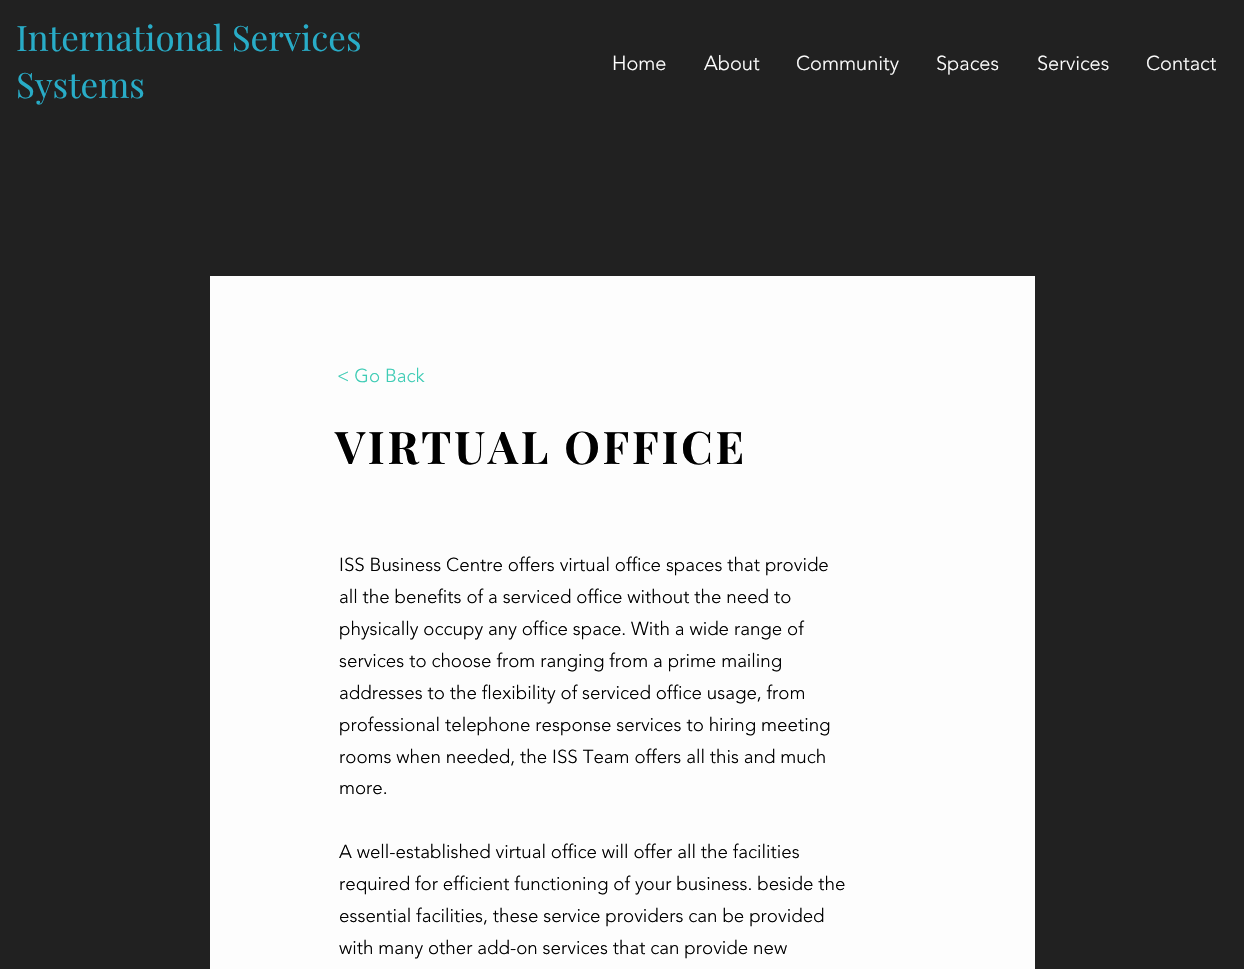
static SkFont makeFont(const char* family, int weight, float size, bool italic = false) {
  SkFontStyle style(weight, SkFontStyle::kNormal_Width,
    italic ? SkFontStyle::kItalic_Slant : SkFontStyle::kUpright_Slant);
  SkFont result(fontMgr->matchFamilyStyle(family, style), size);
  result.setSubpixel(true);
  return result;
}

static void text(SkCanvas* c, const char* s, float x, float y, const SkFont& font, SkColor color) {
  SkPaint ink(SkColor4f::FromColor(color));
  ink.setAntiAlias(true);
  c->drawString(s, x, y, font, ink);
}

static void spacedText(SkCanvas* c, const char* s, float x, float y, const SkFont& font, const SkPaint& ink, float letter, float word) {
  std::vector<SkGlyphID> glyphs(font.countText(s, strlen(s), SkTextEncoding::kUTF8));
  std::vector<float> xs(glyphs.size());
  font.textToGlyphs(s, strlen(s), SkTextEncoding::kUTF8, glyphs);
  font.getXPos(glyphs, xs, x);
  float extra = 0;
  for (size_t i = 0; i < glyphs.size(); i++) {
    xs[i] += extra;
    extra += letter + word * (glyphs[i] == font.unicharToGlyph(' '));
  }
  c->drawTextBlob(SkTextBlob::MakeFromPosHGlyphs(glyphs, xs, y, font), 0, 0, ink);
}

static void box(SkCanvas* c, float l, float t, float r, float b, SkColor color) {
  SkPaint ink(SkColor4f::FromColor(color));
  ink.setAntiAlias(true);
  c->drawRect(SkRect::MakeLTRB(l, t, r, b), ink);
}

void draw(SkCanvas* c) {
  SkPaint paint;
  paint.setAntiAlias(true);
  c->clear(0xff212121);
  SkFont face1 = makeFont("Playfair Display", 400, 35);
  text(c, "International Services", 16, 51, face1, 0xff28acc7);
  text(c, "Systems", 16, 98, face1, 0xff28acc7);
  SkFont face2 = makeFont("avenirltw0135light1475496", 300, 20);
  text(c, "Home", 612, 70, face2, 0xffffffff);
  text(c, "About", 704, 70, face2, 0xffffffff);
  text(c, "Community", 796, 70, face2, 0xffffffff);
  text(c, "Spaces", 936, 70, face2, 0xffffffff);
  text(c, "Services", 1037, 70, face2, 0xffffffff);
  text(c, "Contact", 1146, 70, face2, 0xffffffff);
  box(c, 210, 276, 1035, 969, 0xfffdfdfd);
  SkFont face3 = makeFont("avenirltw0135light1475496", 300, 18.75f);
  text(c, "< Go Back", 337, 382, face3, 0xff3eccb5);
  SkFont face4 = makeFont("Playfair Display", 700, 45);
  paint.setColor(0xff000000);
  spacedText(c, "VIRTUAL OFFICE", 335, 464, face4, paint, 2.75f, 0);
  text(c, "ISS Business Centre offers virtual office spaces that provide", 339, 571, face3, 0xff000000);
  text(c, "all the benefits of a serviced office without the need to", 339, 603, face3, 0xff000000);
  text(c, "physically occupy any office space. With a wide range of", 339, 635, face3, 0xff000000);
  text(c, "services to choose from ranging from a prime mailing", 339, 667, face3, 0xff000000);
  text(c, "addresses to the flexibility of serviced office usage, from", 339, 699, face3, 0xff000000);
  text(c, "professional telephone response services to hiring meeting", 339, 731, face3, 0xff000000);
  text(c, "rooms when needed, the ISS Team offers all this and much", 339, 763, face3, 0xff000000);
  text(c, "more.", 339, 794, face3, 0xff000000);
  text(c, "A well-established virtual office will offer all the facilities", 339, 858, face3, 0xff000000);
  text(c, "required for efficient functioning of your business. beside the", 339, 890, face3, 0xff000000);
  text(c, "essential facilities, these service providers can be provided", 339, 922, face3, 0xff000000);
  text(c, "with many other add-on services that can provide new", 339, 954, face3, 0xff000000);
}
